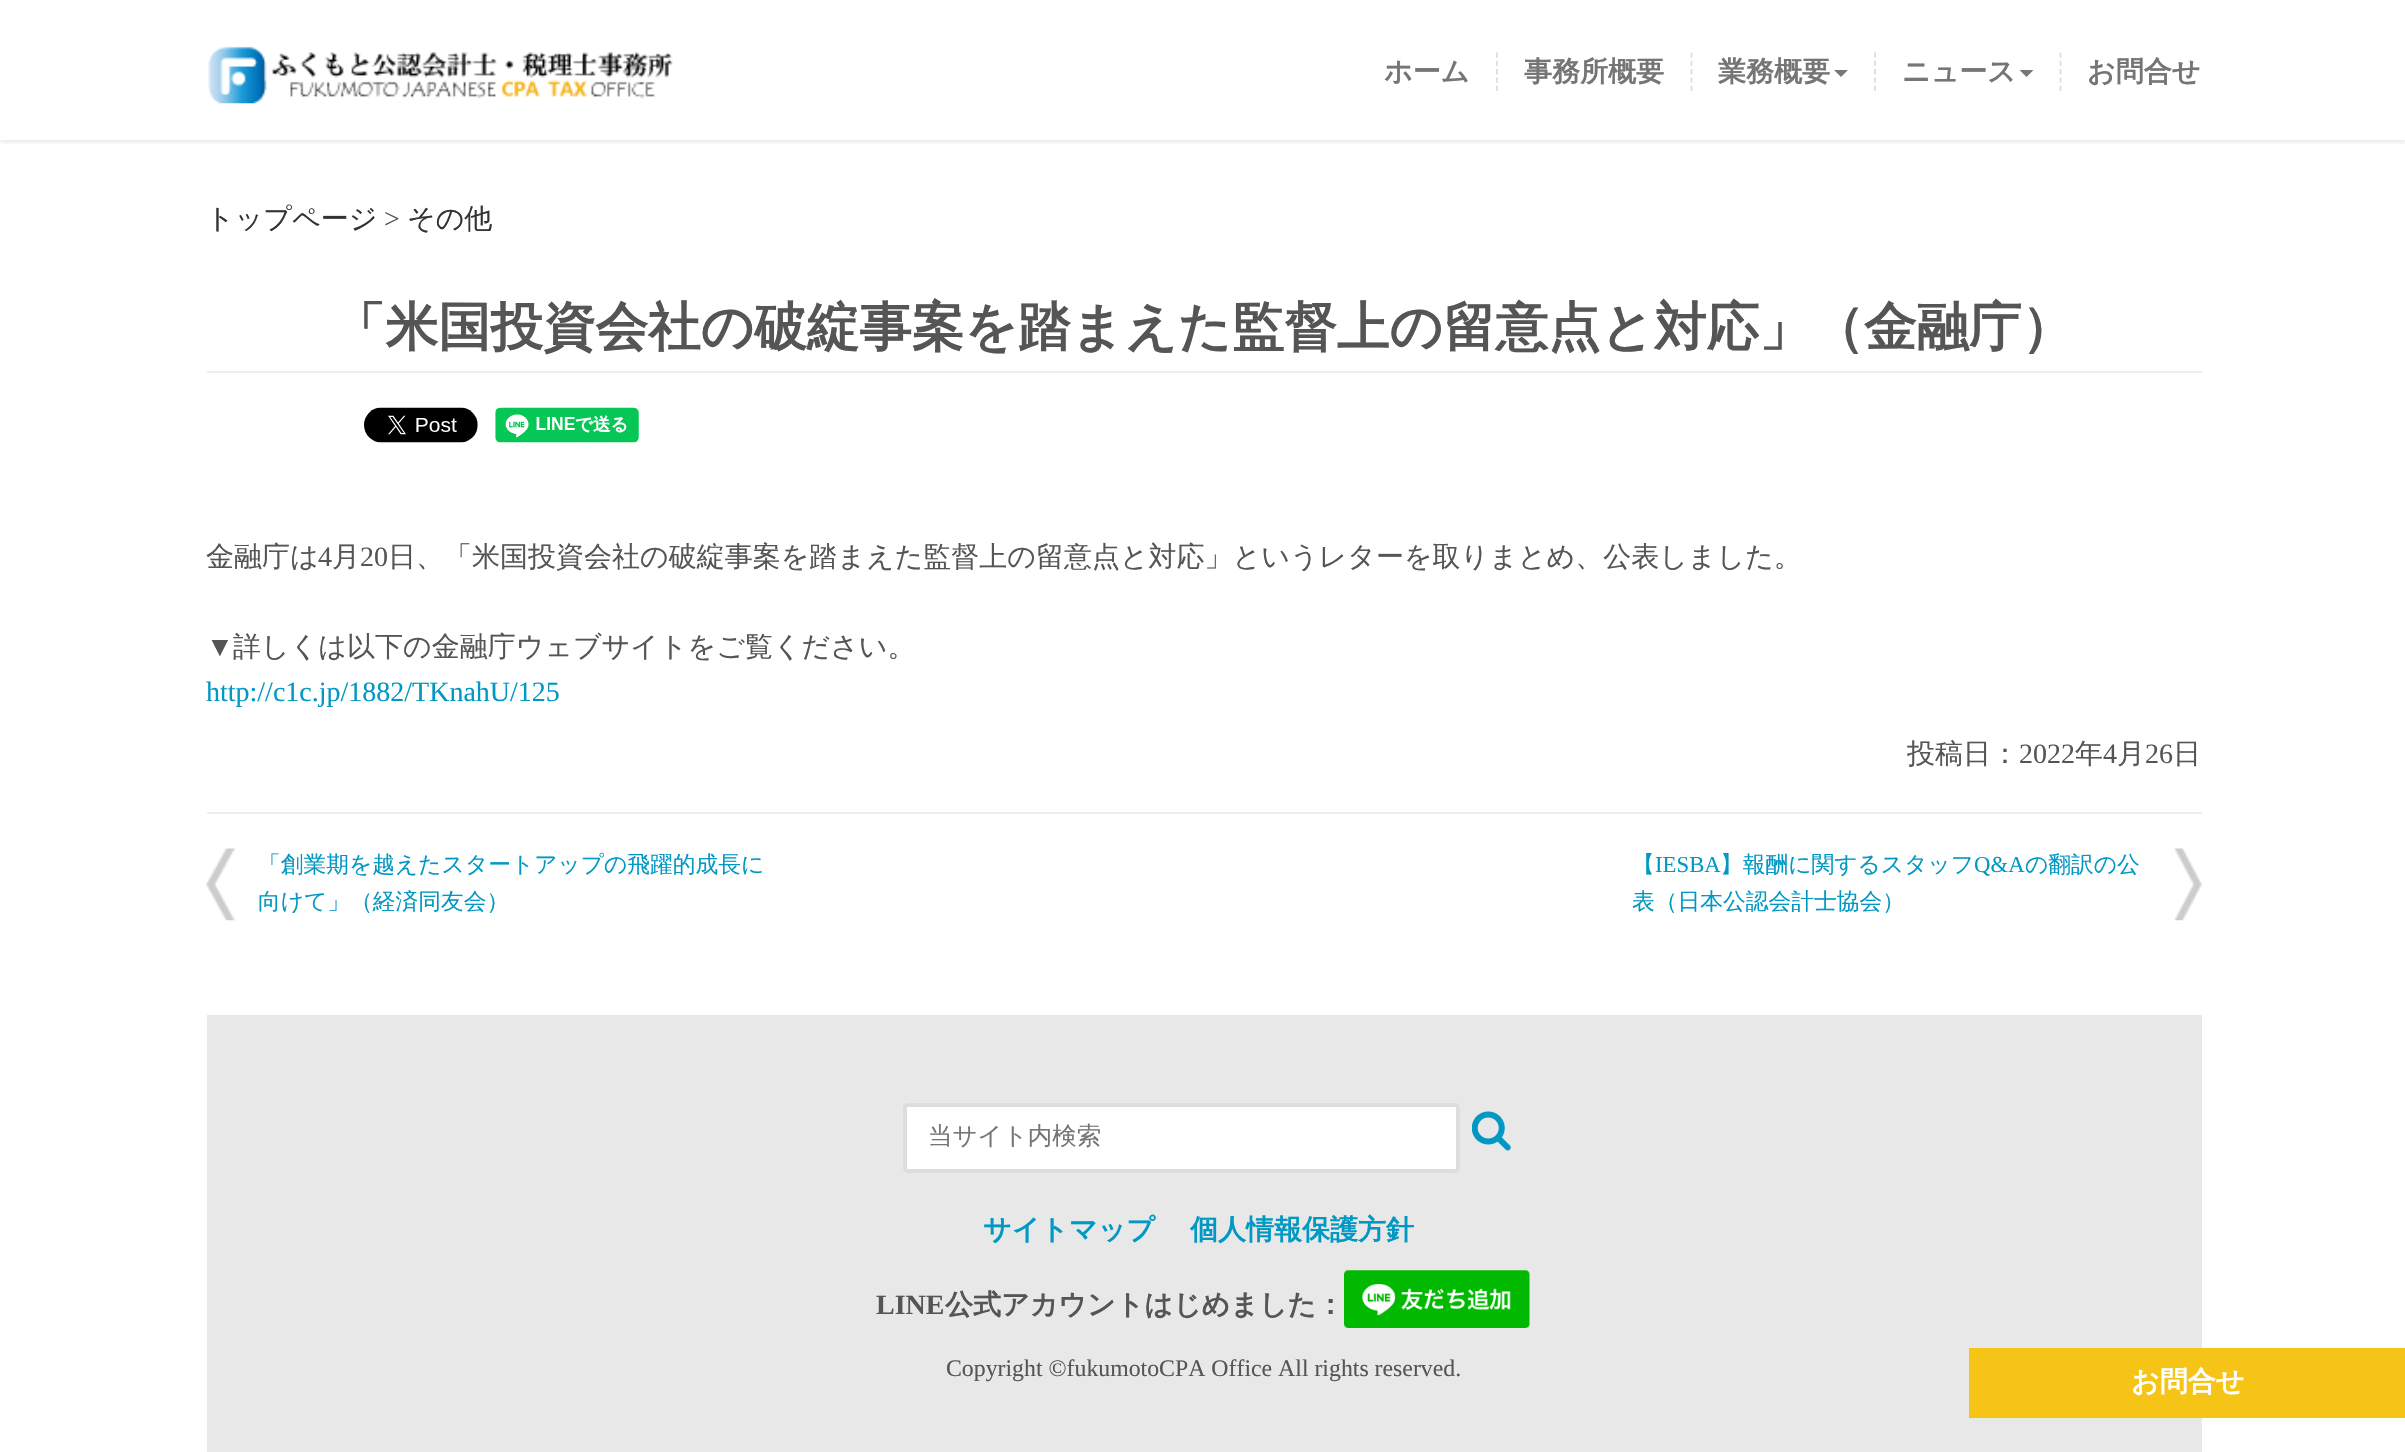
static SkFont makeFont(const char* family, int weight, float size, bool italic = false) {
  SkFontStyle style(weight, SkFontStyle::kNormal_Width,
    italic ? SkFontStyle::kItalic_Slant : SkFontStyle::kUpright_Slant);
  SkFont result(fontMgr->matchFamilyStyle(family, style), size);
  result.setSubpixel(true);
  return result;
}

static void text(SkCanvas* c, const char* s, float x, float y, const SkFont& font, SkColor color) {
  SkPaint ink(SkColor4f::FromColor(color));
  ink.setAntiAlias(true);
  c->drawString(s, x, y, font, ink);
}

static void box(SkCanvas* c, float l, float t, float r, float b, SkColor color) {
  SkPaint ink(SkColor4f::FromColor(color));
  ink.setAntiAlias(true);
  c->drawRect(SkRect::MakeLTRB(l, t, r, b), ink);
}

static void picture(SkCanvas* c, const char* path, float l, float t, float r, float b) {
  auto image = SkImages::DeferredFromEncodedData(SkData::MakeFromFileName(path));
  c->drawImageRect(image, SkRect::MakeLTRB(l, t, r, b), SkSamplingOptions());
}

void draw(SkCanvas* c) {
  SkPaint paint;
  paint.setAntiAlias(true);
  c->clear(0xffffffff);
  c->save();
  c->clipRect(SkRect::MakeLTRB(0, 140, 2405, 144));
  paint.setColor(0x1f292a2b);
  paint.setMaskFilter(SkMaskFilter::MakeBlur(kNormal_SkBlurStyle, 2.5f));
  c->drawRect(SkRect::MakeLTRB(0, 2, 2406, 142), paint);
  paint.setMaskFilter(nullptr);
  c->restore();
  picture(c, "img_01.png", 208, 46, 673, 104);
  paint.setStyle(SkPaint::kStroke_Style);
  paint.setStrokeWidth(1.8f);
  paint.setColor(0xffdddddd);
  paint.setPathEffect(SkDashPathEffect::Make({{5.25f, 3.06f}}, 0));
  c->drawPath(SkPathBuilder().moveTo(1497, 52.5f).lineTo(1497, 91).detach(), paint);
  paint.setPathEffect(nullptr);
  SkFont face1 = makeFont("WenQuanYi Zen Hei", 700, 28);
  text(c, "ホーム", 1384, 81, face1, 0xff757575);
  paint.setPathEffect(SkDashPathEffect::Make({{5.25f, 3.06f}}, 0));
  c->drawPath(SkPathBuilder().moveTo(1691.5f, 52.5f).lineTo(1691.5f, 91).detach(), paint);
  paint.setPathEffect(nullptr);
  text(c, "事務所概要", 1524, 81, face1, 0xff757575);
  paint.setPathEffect(SkDashPathEffect::Make({{5.25f, 3.06f}}, 0));
  c->drawPath(SkPathBuilder().moveTo(1875, 52.5f).lineTo(1875, 91).detach(), paint);
  paint.setPathEffect(nullptr);
  text(c, "業務概要", 1718, 81, face1, 0xff757575);
  paint.setStyle(SkPaint::kFill_Style);
  paint.setColor(0xff777777);
  c->drawPath(SkPathBuilder().moveTo(1834, 70).lineTo(1848, 70).lineTo(1841, 77).close().detach(), paint);
  paint.setStyle(SkPaint::kStroke_Style);
  paint.setColor(0xffdddddd);
  paint.setPathEffect(SkDashPathEffect::Make({{5.25f, 3.06f}}, 0));
  c->drawPath(SkPathBuilder().moveTo(2060.5f, 52.5f).lineTo(2060.5f, 91).detach(), paint);
  paint.setPathEffect(nullptr);
  text(c, "ニュース", 1902, 81, face1, 0xff757575);
  paint.setStyle(SkPaint::kFill_Style);
  paint.setColor(0xff777777);
  c->drawPath(SkPathBuilder().moveTo(2019.5f, 70).lineTo(2033.5f, 70).lineTo(2026.5f, 77).close().detach(), paint);
  text(c, "お問合せ", 2087, 81, face1, 0xff757575);
  SkFont face2 = makeFont("WenQuanYi Zen Hei", 500, 28);
  text(c, "トップページ", 206, 228, face2, 0xff333333);
  SkFont face3 = makeFont("Liberation Serif", 400, 28);
  text(c, ">", 384, 228, face3, 0xff555555);
  text(c, "その他", 407, 228, face2, 0xff333333);
  box(c, 207, 371, 2202, 373, 0xffeeeeee);
  SkFont face4 = makeFont("WenQuanYi Zen Hei", 700, 52.5f);
  text(c, "「米国投資会社の破綻事案を踏まえた監督上の留意点と対応」（金融庁）", 333, 345, face4, 0xff555555);
  picture(c, "img_02.png", 364, 407, 478, 443);
  picture(c, "img_03.png", 495, 407, 639, 443);
  text(c, "金融庁は", 206, 566, face2, 0xff555555);
  text(c, "4", 318, 566, face3, 0xff555555);
  text(c, "月", 332, 566, face2, 0xff555555);
  text(c, "20", 360, 566, face3, 0xff555555);
  text(c, "日、「米国投資会社の破綻事案を踏まえた監督上の留意点と対応」というレターを取りまとめ、公表しました。", 388, 566, face2, 0xff555555);
  text(c, "▼", 206, 656, face3, 0xff555555);
  text(c, "詳しくは以下の金融庁ウェブサイトをご覧ください。", 233, 656, face2, 0xff555555);
  text(c, "http://c1c.jp/1882/TKnahU/125", 206, 701, face3, 0xff0198c3);
  text(c, "投稿日：", 1907, 763, face2, 0xff555555);
  text(c, "2022", 2019, 763, face3, 0xff555555);
  text(c, "年", 2075, 763, face2, 0xff555555);
  text(c, "4", 2103, 763, face3, 0xff555555);
  text(c, "月", 2117, 763, face2, 0xff555555);
  text(c, "26", 2145, 763, face3, 0xff555555);
  text(c, "日", 2173, 763, face2, 0xff555555);
  box(c, 207, 812, 2202, 814, 0xffeeeeee);
  picture(c, "img_04.png", 206, 848, 236, 921);
  SkFont face5 = makeFont("WenQuanYi Zen Hei", 500, 22.75f);
  text(c, "「創業期を越えたスタートアップの飛躍的成長に", 258, 872, face5, 0xff0198c3);
  text(c, "向けて」（経済同友会）", 258, 909, face5, 0xff0198c3);
  picture(c, "img_05.png", 2174, 848, 2202, 921);
  text(c, "【", 1632, 872, face5, 0xff0198c3);
  SkFont face6 = makeFont("Liberation Serif", 400, 22.75f);
  text(c, "IESBA", 1655, 872, face6, 0xff0198c3);
  text(c, "】報酬に関するスタッフ", 1720, 872, face5, 0xff0198c3);
  text(c, "Q&A", 1974, 872, face6, 0xff0198c3);
  text(c, "の翻訳の公", 2025, 872, face5, 0xff0198c3);
  text(c, "表（日本公認会計士協会）", 1632, 909, face5, 0xff0198c3);
  box(c, 207, 1015, 2202, 1452, 0xffe8e8e8);
  paint.setColor(0xffffffff);
  c->drawRoundRect(SkRect::MakeLTRB(905, 1105, 1458, 1171), 3, 3, paint);
  paint.setStyle(SkPaint::kStroke_Style);
  paint.setStrokeWidth(4);
  paint.setColor(0xffdddddd);
  c->drawRoundRect(SkRect::MakeLTRB(905, 1105, 1458, 1171), 3, 3, paint);
  SkFont face7 = makeFont("WenQuanYi Zen Hei", 500, 24.5f);
  text(c, "当サイト内検索", 928, 1144, face7, 0xff757575);
  picture(c, "img_06.png", 1472, 1111, 1511, 1151);
  text(c, "サイトマップ", 983, 1239, face1, 0xff0198c3);
  text(c, "個人情報保護方針", 1190, 1239, face1, 0xff0198c3);
  SkFont face8 = makeFont("Liberation Serif", 700, 28);
  text(c, "LINE", 876, 1314, face8, 0xff555555);
  text(c, "公式アカウントはじめました：", 945, 1314, face1, 0xff555555);
  picture(c, "img_07.png", 1344, 1270, 1530, 1328);
  SkFont face9 = makeFont("Liberation Serif", 400, 23.8f);
  text(c, "Copyright ©fukumotoCPA Office All rights reserved.", 946, 1376, face9, 0xff555555);
  box(c, 1969, 1348, 2405, 1418, 0xfff5c416);
  text(c, "お問合せ", 2131, 1391, face1, 0xffffffff);
}
